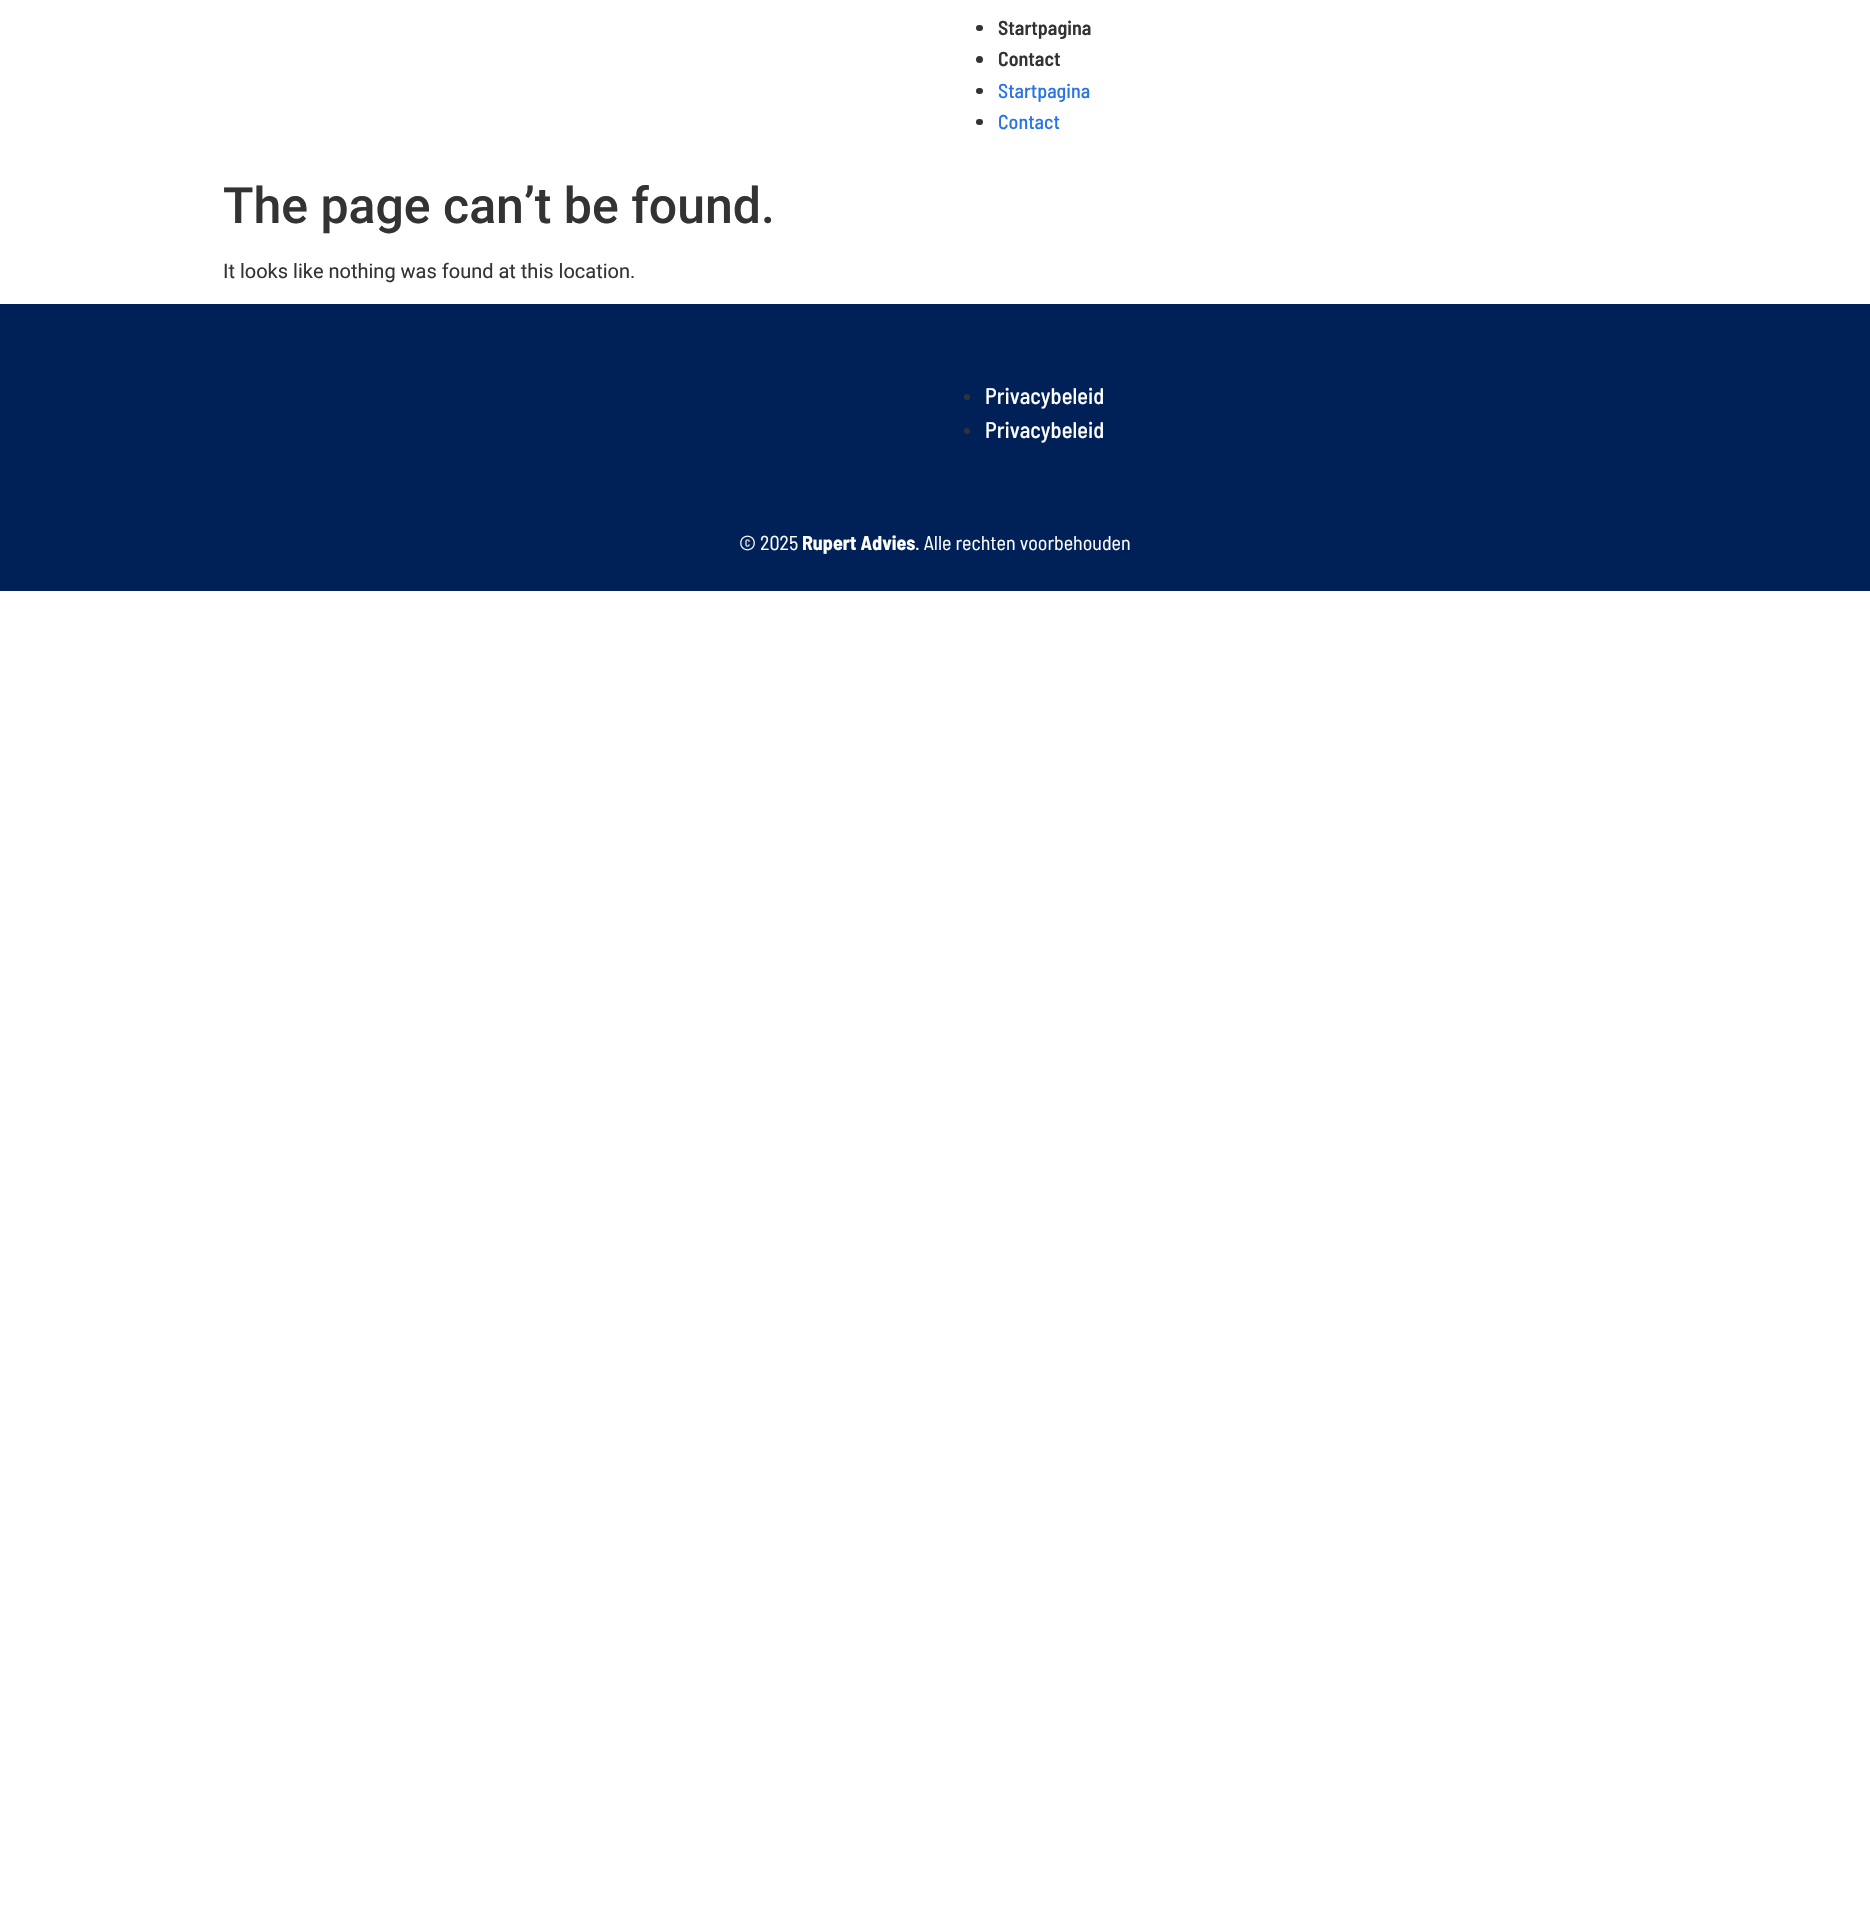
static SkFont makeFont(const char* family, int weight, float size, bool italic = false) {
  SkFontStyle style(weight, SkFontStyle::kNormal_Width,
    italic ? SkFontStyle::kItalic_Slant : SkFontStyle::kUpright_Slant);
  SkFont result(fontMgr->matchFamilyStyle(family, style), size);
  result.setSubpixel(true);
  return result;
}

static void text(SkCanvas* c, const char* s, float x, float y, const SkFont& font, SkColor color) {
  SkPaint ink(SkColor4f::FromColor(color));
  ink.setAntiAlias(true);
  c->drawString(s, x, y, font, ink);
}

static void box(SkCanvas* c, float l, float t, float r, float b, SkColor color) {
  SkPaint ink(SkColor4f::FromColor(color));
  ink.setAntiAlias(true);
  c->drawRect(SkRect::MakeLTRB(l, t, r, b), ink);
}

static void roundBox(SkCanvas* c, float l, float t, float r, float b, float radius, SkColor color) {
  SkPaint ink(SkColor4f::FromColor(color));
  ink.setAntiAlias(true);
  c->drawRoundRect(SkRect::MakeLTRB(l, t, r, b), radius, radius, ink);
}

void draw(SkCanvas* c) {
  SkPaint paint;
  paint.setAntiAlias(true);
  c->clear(0xffffffff);
  roundBox(c, 976, 25, 983, 31, 3, 0xff333333);
  SkFont face1 = makeFont("Barlow Semi Condensed", 600, 20);
  text(c, "Startpagina", 998, 35, face1, 0xff333333);
  paint.setColor(0xff333333);
  c->drawCircle(979.5f, 59.5f, 3.5f, paint);
  text(c, "Contact", 998, 66, face1, 0xff333333);
  roundBox(c, 976, 88, 983, 94, 3, 0xff333333);
  SkFont face2 = makeFont("Barlow Semi Condensed", 500, 20);
  text(c, "Startpagina", 998, 98, face2, 0xff2972e9);
  roundBox(c, 976, 119, 983, 125, 3, 0xff333333);
  text(c, "Contact", 998, 129, face2, 0xff2972e9);
  SkFont face3 = makeFont("Roboto", 500, 50);
  text(c, "The page can’t be found.", 223, 223, face3, 0xff333333);
  SkFont face4 = makeFont("Roboto", 400, 20);
  text(c, "It looks like nothing was found at this location.", 223, 278, face4, 0xff333333);
  box(c, 0, 304, 1870, 591, 0xff002157);
  c->drawCircle(967, 397, 3, paint);
  SkFont face5 = makeFont("Barlow Semi Condensed", 500, 22.5f);
  text(c, "Privacybeleid", 985, 404, face5, 0xffffffff);
  c->drawCircle(967, 431, 3, paint);
  text(c, "Privacybeleid", 985, 438, face5, 0xffffffff);
  SkFont face6 = makeFont("Barlow Semi Condensed", 400, 20);
  text(c, "© 2025", 739, 550, face6, 0xffffffff);
  SkFont face7 = makeFont("Barlow Semi Condensed", 700, 20);
  text(c, "Rupert Advies", 802, 550, face7, 0xffffffff);
  text(c, ". Alle rechten voorbehouden", 915, 550, face6, 0xffffffff);
}
